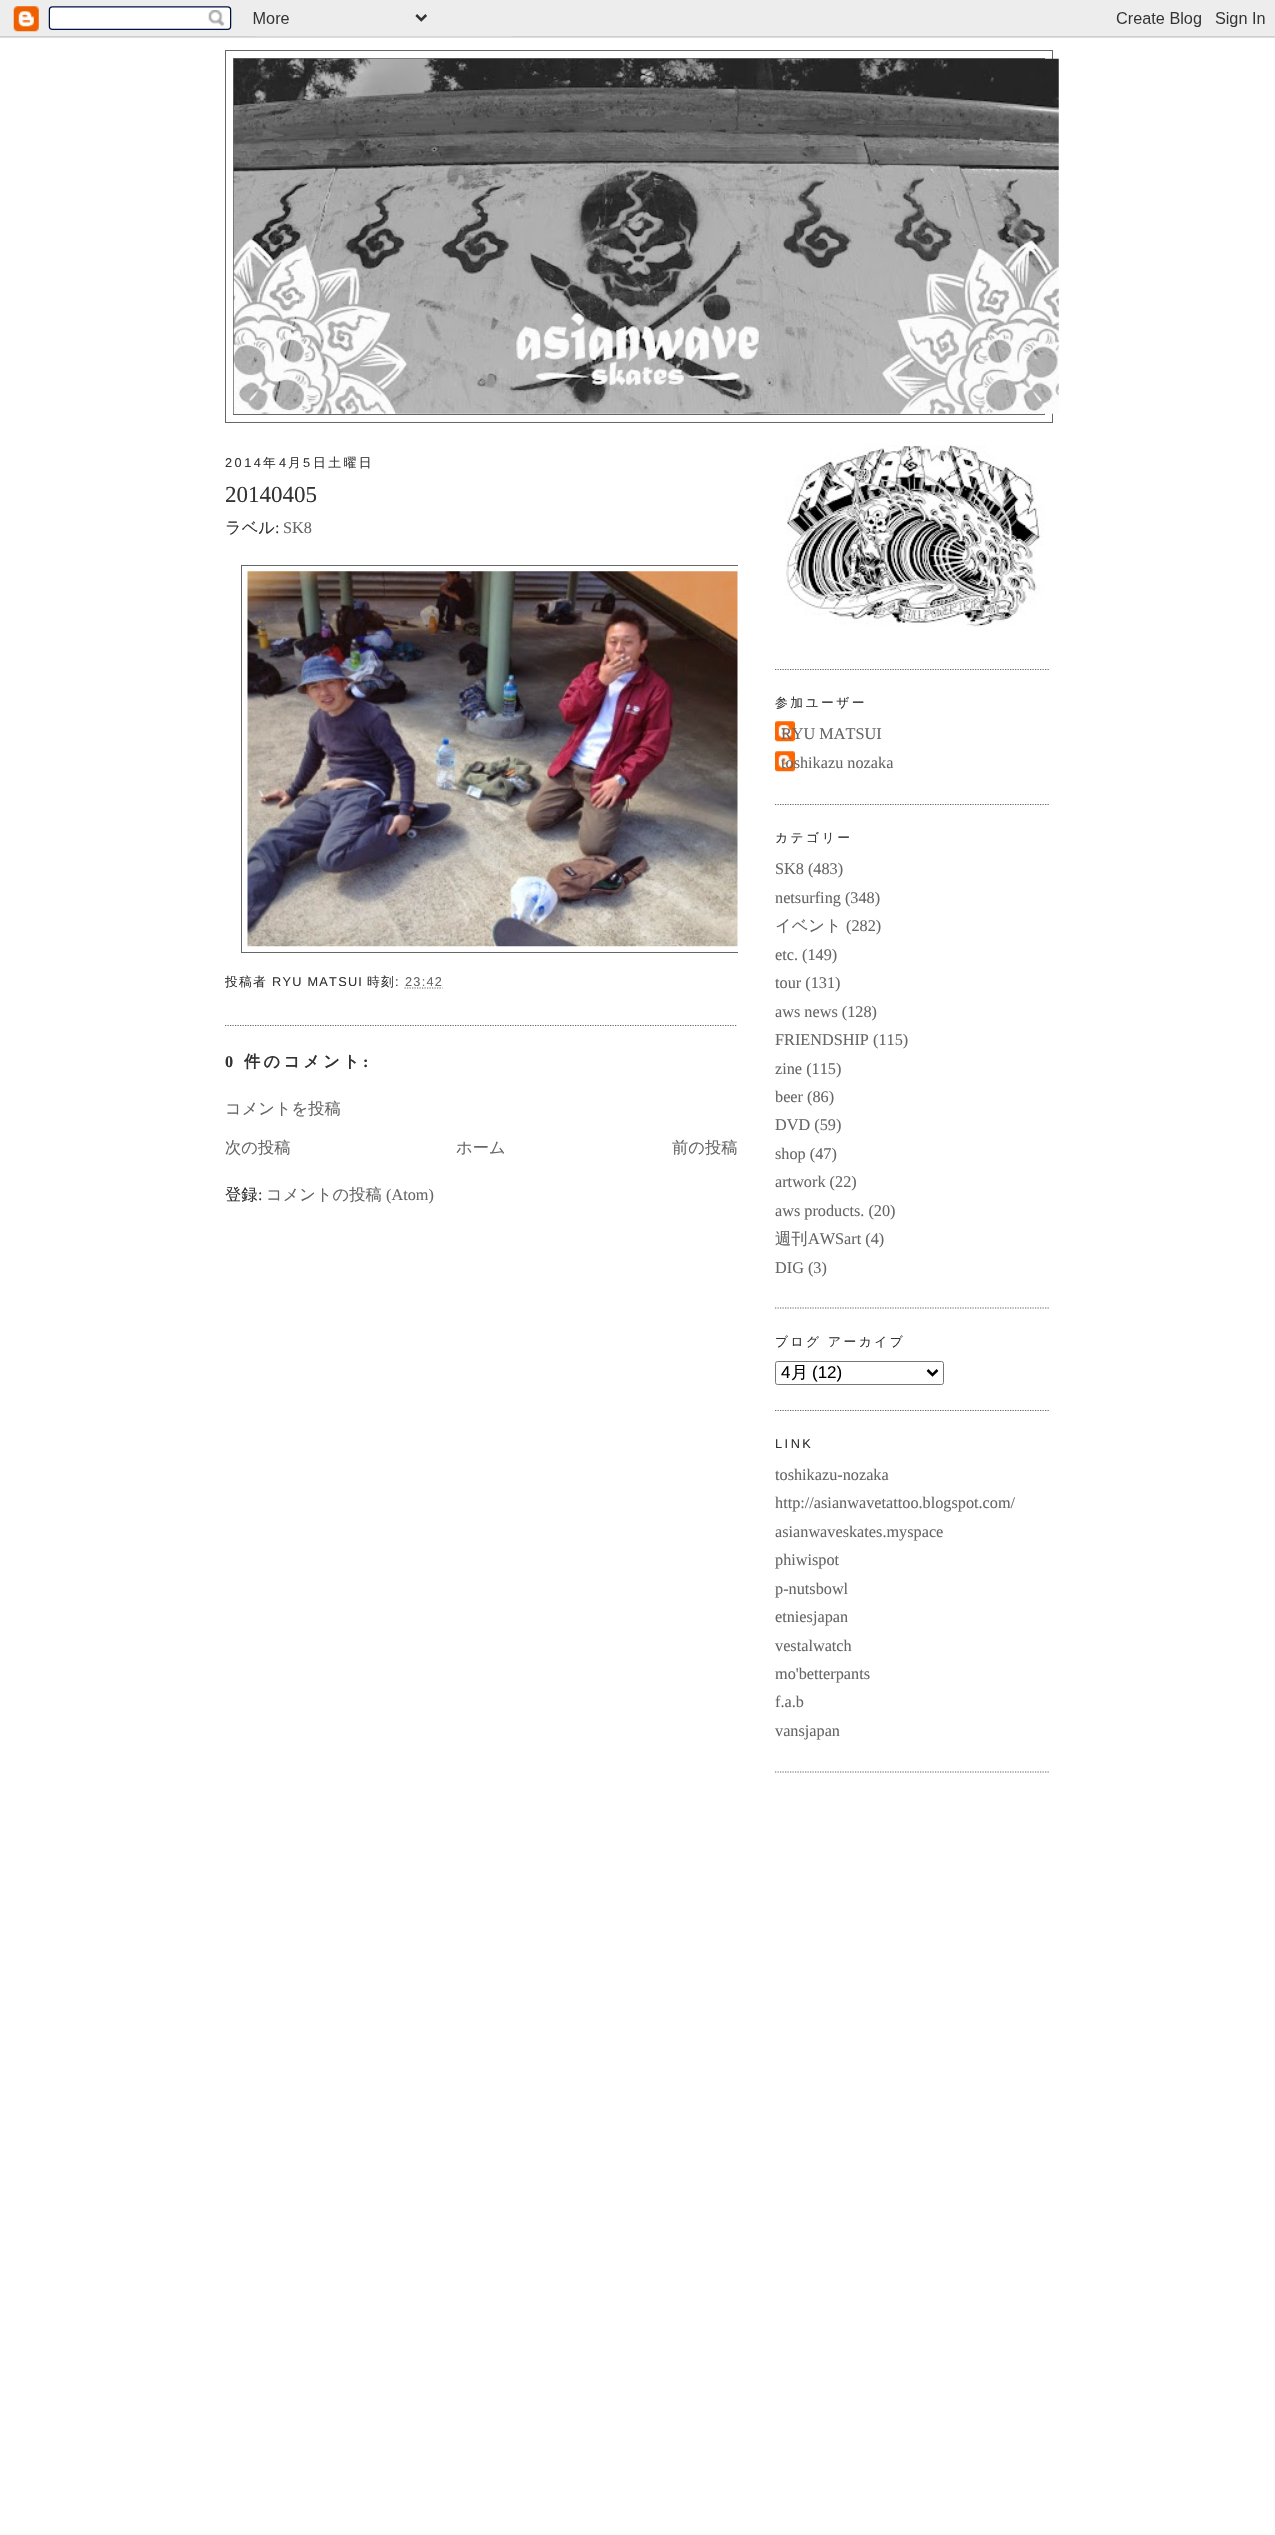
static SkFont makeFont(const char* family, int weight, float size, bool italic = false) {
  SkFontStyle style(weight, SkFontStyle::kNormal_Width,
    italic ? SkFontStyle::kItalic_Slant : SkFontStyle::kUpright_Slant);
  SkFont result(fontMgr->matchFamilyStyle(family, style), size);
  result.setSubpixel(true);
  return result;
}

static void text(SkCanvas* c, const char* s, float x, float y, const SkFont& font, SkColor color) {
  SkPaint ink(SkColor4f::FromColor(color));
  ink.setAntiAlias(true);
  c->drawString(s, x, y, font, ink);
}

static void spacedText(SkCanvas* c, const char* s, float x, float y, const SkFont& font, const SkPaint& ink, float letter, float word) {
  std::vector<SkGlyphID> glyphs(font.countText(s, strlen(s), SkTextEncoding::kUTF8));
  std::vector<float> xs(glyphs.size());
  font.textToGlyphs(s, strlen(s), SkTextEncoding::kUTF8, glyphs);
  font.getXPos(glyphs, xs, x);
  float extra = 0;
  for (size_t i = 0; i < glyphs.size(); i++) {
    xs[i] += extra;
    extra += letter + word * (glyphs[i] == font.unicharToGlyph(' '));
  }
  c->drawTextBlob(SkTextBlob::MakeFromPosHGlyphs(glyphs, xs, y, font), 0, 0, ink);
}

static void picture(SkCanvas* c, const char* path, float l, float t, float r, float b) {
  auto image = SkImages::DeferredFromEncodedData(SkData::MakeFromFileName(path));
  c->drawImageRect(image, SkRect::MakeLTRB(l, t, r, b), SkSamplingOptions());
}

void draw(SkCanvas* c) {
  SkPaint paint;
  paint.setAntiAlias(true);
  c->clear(0xffffffff);
  picture(c, "img_01.png", 0, 0, 1275, 38);
  paint.setStyle(SkPaint::kStroke_Style);
  paint.setStrokeWidth(1);
  paint.setColor(0xff666666);
  c->drawRect(SkRect::MakeLTRB(225.5f, 50.5f, 1052.5f, 422.5f), paint);
  c->drawRect(SkRect::MakeLTRB(233.5f, 58.5f, 1044.5f, 414.5f), paint);
  picture(c, "img_02.png", 233, 58, 1059, 414);
  SkFont face1 = makeFont("Liberation Sans", 400, 12.75f);
  paint.setStyle(SkPaint::kFill_Style);
  paint.setColor(0xff333333);
  spacedText(c, "2014", 225, 467, face1, paint, 2.5f, 0);
  SkFont face2 = makeFont("WenQuanYi Zen Hei", 500, 12.75f);
  spacedText(c, "年", 263, 467, face2, paint, 2.5f, 0);
  spacedText(c, "4", 279, 467, face1, paint, 2.5f, 0);
  spacedText(c, "月", 288, 467, face2, paint, 2.5f, 0);
  spacedText(c, "5", 303, 467, face1, paint, 2.5f, 0);
  spacedText(c, "日土曜日", 313, 467, face2, paint, 2.5f, 0);
  paint.setStyle(SkPaint::kStroke_Style);
  paint.setStrokeWidth(1.2f);
  paint.setColor(0xff666666);
  paint.setPathEffect(SkDashPathEffect::Make({{1.25f, 1.25f}}, 0));
  c->drawPath(SkPathBuilder().moveTo(225, 1025.5f).lineTo(737.5f, 1025.5f).detach(), paint);
  paint.setPathEffect(nullptr);
  SkFont face3 = makeFont("Liberation Serif", 400, 23);
  text(c, "20140405", 225, 502, face3, 0xff333333);
  SkFont face4 = makeFont("WenQuanYi Zen Hei", 500, 16.25f);
  text(c, "ラベル", 225, 533, face4, 0xff333333);
  SkFont face5 = makeFont("Liberation Serif", 400, 16.25f);
  text(c, ":", 275, 533, face5, 0xff333333);
  text(c, "SK8", 283, 533, face5, 0xff666666);
  c->save();
  c->clipRect(SkRect::MakeLTRB(225, 435, 738, 1265));
  paint.setStrokeWidth(1);
  c->drawRect(SkRect::MakeLTRB(241.5f, 565.5f, 753.5f, 952.5f), paint);
  c->restore();
  picture(c, "img_03.png", 247, 571, 738, 947);
  paint.setStyle(SkPaint::kFill_Style);
  paint.setColor(0xff333333);
  spacedText(c, "投稿者", 225, 986, face2, paint, 1.25f, 0);
  spacedText(c, "RYU MATSUI", 272, 986, face1, paint, 1.25f, 0);
  spacedText(c, "時刻", 367, 986, face2, paint, 1.25f, 0);
  spacedText(c, ":", 395, 986, face1, paint, 1.25f, 0);
  paint.setColor(0xff666666);
  spacedText(c, "23:42", 405, 986, face1, paint, 1.25f, 0);
  paint.setStyle(SkPaint::kStroke_Style);
  paint.setStrokeWidth(1.2f);
  paint.setPathEffect(SkDashPathEffect::Make({{1.25f, 1.25f}}, 0));
  c->drawPath(SkPathBuilder().moveTo(404.5f, 988).lineTo(442.5f, 988).detach(), paint);
  paint.setPathEffect(nullptr);
  SkFont face6 = makeFont("Liberation Serif", 700, 16.25f);
  paint.setStyle(SkPaint::kFill_Style);
  paint.setColor(0xff333333);
  spacedText(c, "0", 225, 1067, face6, paint, 3.25f, 0);
  SkFont face7 = makeFont("WenQuanYi Zen Hei", 700, 16.25f);
  spacedText(c, "件のコメント", 244, 1067, face7, paint, 3.25f, 0);
  spacedText(c, ":", 363, 1067, face6, paint, 3.25f, 0);
  text(c, "コメントを投稿", 225, 1114, face4, 0xff666666);
  text(c, "次の投稿", 225, 1153, face4, 0xff666666);
  text(c, "ホーム", 456, 1153, face4, 0xff666666);
  text(c, "前の投稿", 672, 1153, face4, 0xff666666);
  text(c, "登録", 225, 1200, face4, 0xff333333);
  text(c, ":", 258, 1200, face5, 0xff333333);
  text(c, "コメントの投稿", 266, 1200, face4, 0xff666666);
  text(c, "(Atom)", 386, 1200, face5, 0xff666666);
  paint.setStyle(SkPaint::kStroke_Style);
  paint.setColor(0xff666666);
  paint.setPathEffect(SkDashPathEffect::Make({{1.25f, 1.25f}}, 0));
  c->drawPath(SkPathBuilder().moveTo(775, 669.5f).lineTo(1050, 669.5f).detach(), paint);
  paint.setPathEffect(nullptr);
  picture(c, "img_04.png", 785, 445, 1045, 627);
  paint.setPathEffect(SkDashPathEffect::Make({{1.25f, 1.25f}}, 0));
  c->drawPath(SkPathBuilder().moveTo(775, 804.5f).lineTo(1050, 804.5f).detach(), paint);
  paint.setPathEffect(nullptr);
  paint.setStyle(SkPaint::kFill_Style);
  paint.setColor(0xff333333);
  spacedText(c, "参加ユーザー", 775, 707, face2, paint, 2.5f, 0);
  picture(c, "img_05.png", 775, 721, 795, 742);
  text(c, "RYU MATSUI", 781, 739, face5, 0xff666666);
  picture(c, "img_05.png", 775, 751, 795, 772);
  text(c, "toshikazu nozaka", 781, 768, face5, 0xff666666);
  paint.setStyle(SkPaint::kStroke_Style);
  paint.setColor(0xff666666);
  paint.setPathEffect(SkDashPathEffect::Make({{1.25f, 1.25f}}, 0));
  c->drawPath(SkPathBuilder().moveTo(775, 1308).lineTo(1050, 1308).detach(), paint);
  paint.setPathEffect(nullptr);
  paint.setStyle(SkPaint::kFill_Style);
  paint.setColor(0xff333333);
  spacedText(c, "カテゴリー", 775, 842, face2, paint, 2.5f, 0);
  text(c, "SK8 (483)", 775, 874, face5, 0xff666666);
  text(c, "netsurfing (348)", 775, 903, face5, 0xff666666);
  text(c, "イベント", 775, 931, face4, 0xff666666);
  text(c, "(282)", 846, 931, face5, 0xff666666);
  text(c, "etc. (149)", 775, 960, face5, 0xff666666);
  text(c, "tour (131)", 775, 988, face5, 0xff666666);
  text(c, "aws news (128)", 775, 1017, face5, 0xff666666);
  text(c, "FRIENDSHIP (115)", 775, 1045, face5, 0xff666666);
  text(c, "zine (115)", 775, 1074, face5, 0xff666666);
  text(c, "beer (86)", 775, 1102, face5, 0xff666666);
  text(c, "DVD (59)", 775, 1130, face5, 0xff666666);
  text(c, "shop (47)", 775, 1159, face5, 0xff666666);
  text(c, "artwork (22)", 775, 1187, face5, 0xff666666);
  text(c, "aws products. (20)", 775, 1216, face5, 0xff666666);
  text(c, "週刊", 775, 1244, face4, 0xff666666);
  text(c, "AWSart (4)", 808, 1244, face5, 0xff666666);
  text(c, "DIG (3)", 775, 1273, face5, 0xff666666);
  paint.setStyle(SkPaint::kStroke_Style);
  paint.setColor(0xff666666);
  paint.setPathEffect(SkDashPathEffect::Make({{1.25f, 1.25f}}, 0));
  c->drawPath(SkPathBuilder().moveTo(775, 1410.5f).lineTo(1050, 1410.5f).detach(), paint);
  paint.setPathEffect(nullptr);
  paint.setStyle(SkPaint::kFill_Style);
  paint.setColor(0xff333333);
  spacedText(c, "ブログ アーカイブ", 775, 1346, face2, paint, 2.5f, 0);
  paint.setStyle(SkPaint::kStroke_Style);
  paint.setStrokeWidth(1);
  paint.setColor(0xff767676);
  c->drawRoundRect(SkRect::MakeLTRB(775.5f, 1361.5f, 943.5f, 1384.5f), 2, 2, paint);
  paint.setStrokeWidth(2.5f);
  paint.setColor(0xff000000);
  c->drawPath(SkPathBuilder().moveTo(927.5f, 1370).lineTo(932.5f, 1375).lineTo(937.5f, 1370).detach(), paint);
  SkFont face8 = makeFont("Liberation Sans", 400, 17);
  text(c, "4", 781, 1378, face8, 0xff000000);
  SkFont face9 = makeFont("WenQuanYi Zen Hei", 500, 17);
  text(c, "月", 791, 1378, face9, 0xff000000);
  text(c, "(12)", 812, 1378, face8, 0xff000000);
  paint.setStrokeWidth(1.2f);
  paint.setColor(0xff666666);
  paint.setPathEffect(SkDashPathEffect::Make({{1.25f, 1.25f}}, 0));
  c->drawPath(SkPathBuilder().moveTo(775, 1772).lineTo(1050, 1772).detach(), paint);
  paint.setPathEffect(nullptr);
  paint.setStyle(SkPaint::kFill_Style);
  paint.setColor(0xff333333);
  spacedText(c, "LINK", 775, 1448, face1, paint, 2.5f, 0);
  text(c, "toshikazu-nozaka", 775, 1480, face5, 0xff666666);
  text(c, "http://asianwavetattoo.blogspot.com/", 775, 1508, face5, 0xff666666);
  text(c, "asianwaveskates.myspace", 775, 1537, face5, 0xff666666);
  text(c, "phiwispot", 775, 1565, face5, 0xff666666);
  text(c, "p-nutsbowl", 775, 1594, face5, 0xff666666);
  text(c, "etniesjapan", 775, 1622, face5, 0xff666666);
  text(c, "vestalwatch", 775, 1651, face5, 0xff666666);
  text(c, "mo'betterpants", 775, 1679, face5, 0xff666666);
  text(c, "f.a.b", 775, 1707, face5, 0xff666666);
  text(c, "vansjapan", 775, 1736, face5, 0xff666666);
}
